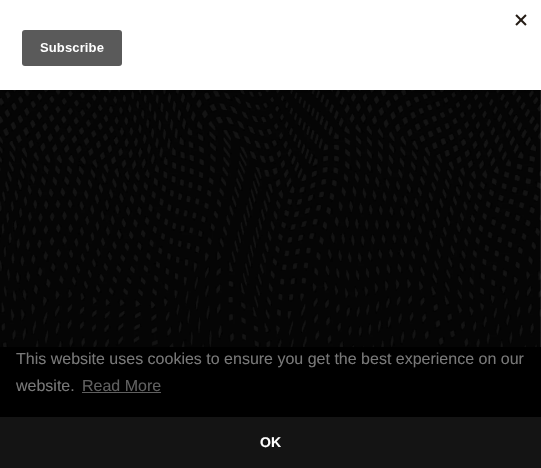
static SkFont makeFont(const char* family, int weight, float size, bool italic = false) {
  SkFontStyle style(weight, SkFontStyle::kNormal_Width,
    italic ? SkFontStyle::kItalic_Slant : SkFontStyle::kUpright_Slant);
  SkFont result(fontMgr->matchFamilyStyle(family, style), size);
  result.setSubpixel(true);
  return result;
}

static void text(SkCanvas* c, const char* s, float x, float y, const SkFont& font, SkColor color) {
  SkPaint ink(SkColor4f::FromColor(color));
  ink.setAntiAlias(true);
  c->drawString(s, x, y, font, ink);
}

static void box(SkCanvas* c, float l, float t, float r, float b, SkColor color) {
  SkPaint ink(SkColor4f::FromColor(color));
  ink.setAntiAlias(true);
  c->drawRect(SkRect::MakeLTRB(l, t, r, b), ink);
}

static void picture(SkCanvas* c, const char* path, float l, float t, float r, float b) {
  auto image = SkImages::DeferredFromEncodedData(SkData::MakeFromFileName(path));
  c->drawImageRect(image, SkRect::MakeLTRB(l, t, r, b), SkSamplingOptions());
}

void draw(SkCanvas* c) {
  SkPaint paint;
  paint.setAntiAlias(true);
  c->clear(0xffffffff);
  picture(c, "img_02.png", 0, 90, 541, 347);
  paint.setColor(0x33000000);
  paint.setMaskFilter(SkMaskFilter::MakeBlur(kNormal_SkBlurStyle, 3));
  c->drawRect(SkRect::MakeLTRB(0, 3, 541, 93), paint);
  paint.setMaskFilter(nullptr);
  box(c, 0, 0, 541, 90, 0xffffffff);
  picture(c, "img_01.png", 22, 14, 527, 66);
  box(c, 0, 347, 541, 417, 0xff000000);
  SkFont face1 = makeFont("Liberation Sans", 400, 16);
  text(c, "This website uses cookies to ensure you get the best experience on our", 16, 364, face1, 0xff787878);
  text(c, "website.", 16, 391, face1, 0xff787878);
  text(c, "Read More", 82, 391, face1, 0xff606060);
  box(c, 82, 392, 161, 393, 0xff606060);
  box(c, 0, 417, 541, 468, 0xff141414);
  SkFont face2 = makeFont("Liberation Sans", 700, 14);
  text(c, "OK", 260, 447, face2, 0xffffffff);
}
